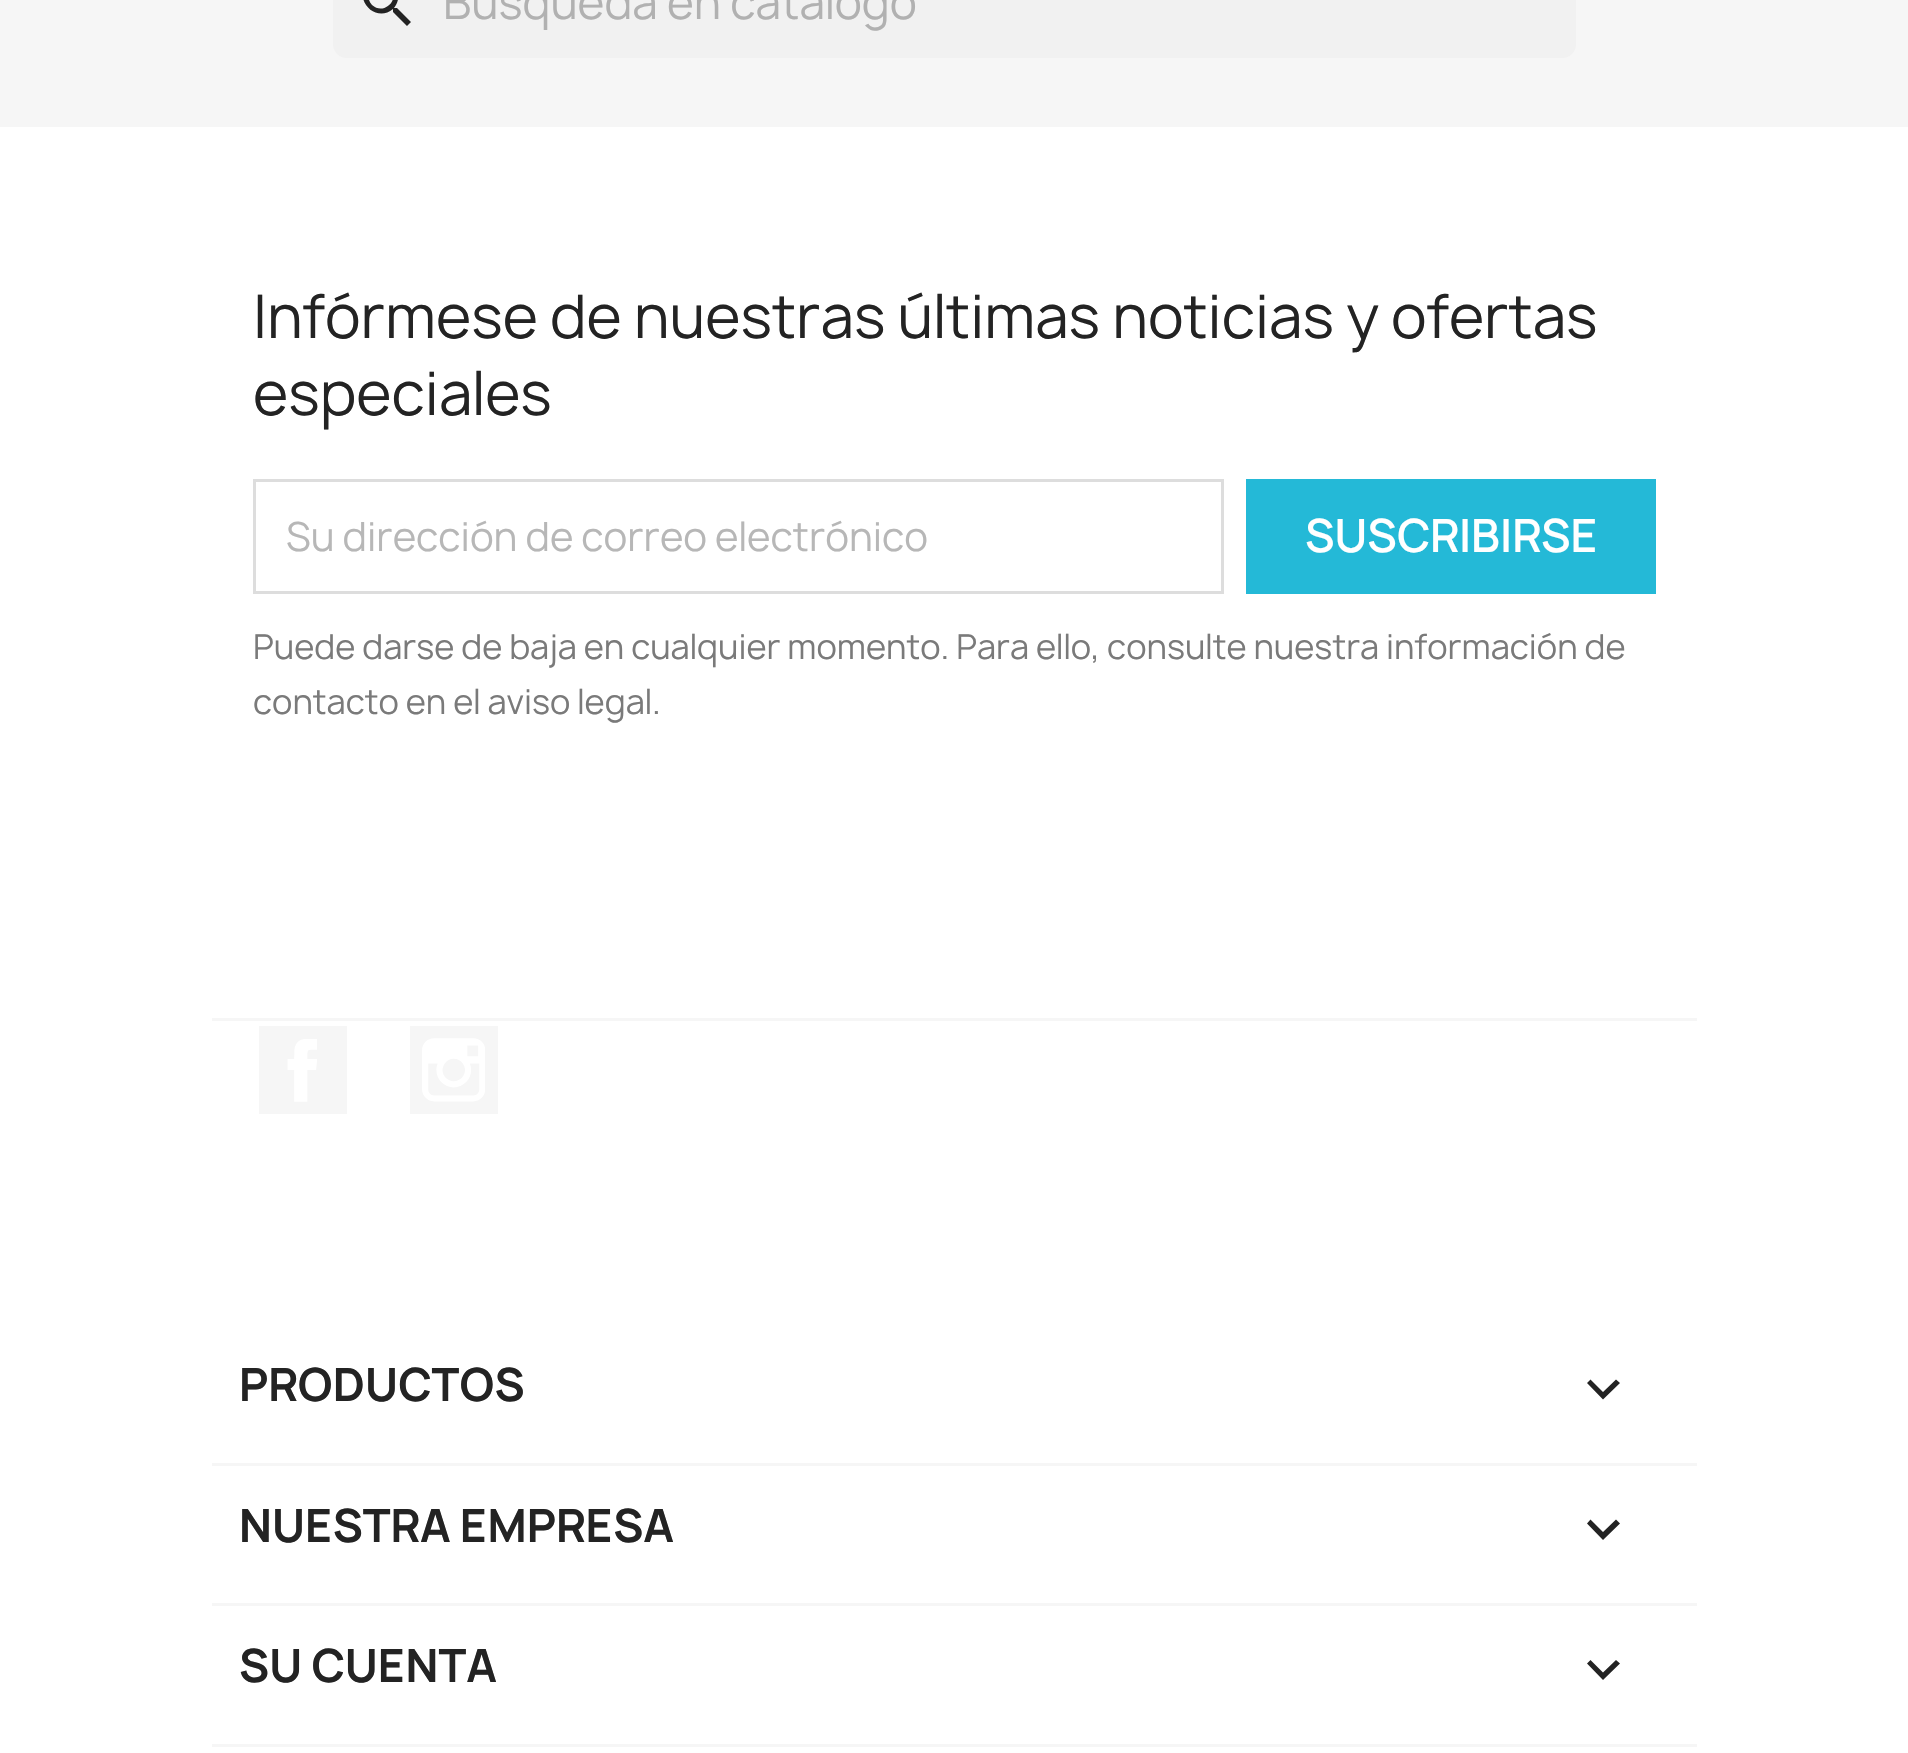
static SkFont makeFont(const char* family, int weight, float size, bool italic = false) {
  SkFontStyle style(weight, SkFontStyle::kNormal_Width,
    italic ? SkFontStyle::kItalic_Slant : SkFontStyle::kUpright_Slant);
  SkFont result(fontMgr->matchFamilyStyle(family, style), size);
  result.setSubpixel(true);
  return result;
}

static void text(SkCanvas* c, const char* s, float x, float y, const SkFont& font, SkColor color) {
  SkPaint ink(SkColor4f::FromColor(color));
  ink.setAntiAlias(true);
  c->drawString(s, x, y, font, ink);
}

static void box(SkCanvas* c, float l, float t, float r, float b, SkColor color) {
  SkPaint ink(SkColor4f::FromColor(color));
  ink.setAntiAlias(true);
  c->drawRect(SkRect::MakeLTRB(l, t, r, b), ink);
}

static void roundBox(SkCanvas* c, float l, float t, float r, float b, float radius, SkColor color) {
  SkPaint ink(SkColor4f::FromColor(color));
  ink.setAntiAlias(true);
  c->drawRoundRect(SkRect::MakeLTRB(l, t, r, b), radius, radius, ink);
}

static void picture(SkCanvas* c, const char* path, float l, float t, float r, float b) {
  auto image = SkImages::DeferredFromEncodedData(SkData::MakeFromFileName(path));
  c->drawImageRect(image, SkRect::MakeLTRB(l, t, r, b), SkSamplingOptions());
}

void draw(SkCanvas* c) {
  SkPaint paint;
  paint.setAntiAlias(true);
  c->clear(0xffffffff);
  box(c, 0, 0, 1908, 127, 0xfff6f6f6);
  roundBox(c, 333, -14, 1576, 58, 14, 0xfff1f1f1);
  paint.setColor(0xff232323);
  c->drawPath(SkPathBuilder().moveTo(372, 5).cubicTo(384, 16, 401, -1, 390, -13).cubicTo(378, -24, 361, -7, 372, 5).close().moveTo(397, 8).lineTo(411, 22).lineTo(407, 26).lineTo(393, 12).lineTo(393, 10).lineTo(393, 9).cubicTo(376, 24, 352, -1, 368, -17).cubicTo(385, -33, 408, -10, 394, 8).lineTo(395, 8).close().detach(), paint);
  SkFont face1 = makeFont("Manrope", 400, 44);
  text(c, "Búsqueda en catálogo", 443, 19, face1, 0xffb1b1b1);
  box(c, 212, 1018, 1697, 1021, 0xfff6f6f6);
  SkFont face2 = makeFont("Manrope", 400, 57.75f);
  text(c, "Infórmese de nuestras últimas noticias y ofertas", 253, 338, face2, 0xff232323);
  text(c, "especiales", 253, 415, face2, 0xff232323);
  paint.setStyle(SkPaint::kStroke_Style);
  paint.setStrokeWidth(3);
  paint.setColor(0xffdddddd);
  c->drawRect(SkRect::MakeLTRB(254.5f, 480.5f, 1222.5f, 592.5f), paint);
  SkFont face3 = makeFont("Manrope", 400, 38.5f);
  text(c, "Su dirección de correo electrónico", 286, 551, face3, 0xffb7b7b7);
  box(c, 1246, 479, 1656, 594, 0xff24b9d7);
  SkFont face4 = makeFont("Manrope", 600, 44);
  text(c, "SUSCRIBIRSE", 1305, 552, face4, 0xffffffff);
  SkFont face5 = makeFont("Manrope", 400, 33);
  text(c, "Puede darse de baja en cualquier momento. Para ello, consulte nuestra información de", 253, 659, face5, 0xff7a7a7a);
  text(c, "contacto en el aviso legal.", 253, 714, face5, 0xff7a7a7a);
  box(c, 259, 1026, 347, 1114, 0xfff6f6f6);
  picture(c, "img_01.png", 287, 1039, 317, 1102);
  box(c, 410, 1026, 498, 1114, 0xfff6f6f6);
  picture(c, "img_02.png", 422, 1038, 485, 1102);
  box(c, 212, 1463, 1697, 1466, 0xfff6f6f6);
  SkFont face6 = makeFont("Manrope", 700, 44);
  text(c, "PRODUCTOS", 239, 1401, face6, 0xff232323);
  paint.setStyle(SkPaint::kFill_Style);
  paint.setColor(0xff232323);
  c->drawPath(SkPathBuilder().moveTo(1590.5f, 1379.5f).lineTo(1603, 1392).lineTo(1616, 1379.5f).lineTo(1620, 1383).lineTo(1603, 1399.5f).lineTo(1587, 1383).close().detach(), paint);
  box(c, 212, 1603, 1697, 1606, 0xfff6f6f6);
  text(c, "NUESTRA EMPRESA", 239, 1542, face6, 0xff232323);
  c->drawPath(SkPathBuilder().moveTo(1590.5f, 1519.5f).lineTo(1603, 1532).lineTo(1616, 1519.5f).lineTo(1620, 1523.5f).lineTo(1603, 1540).lineTo(1587, 1523.5f).close().detach(), paint);
  box(c, 212, 1744, 1697, 1747, 0xfff6f6f6);
  text(c, "SU CUENTA", 239, 1682, face6, 0xff232323);
  c->drawPath(SkPathBuilder().moveTo(1590.5f, 1660).lineTo(1603, 1672.5f).lineTo(1616, 1660).lineTo(1620, 1663.5f).lineTo(1603, 1680).lineTo(1587, 1663.5f).close().detach(), paint);
}
